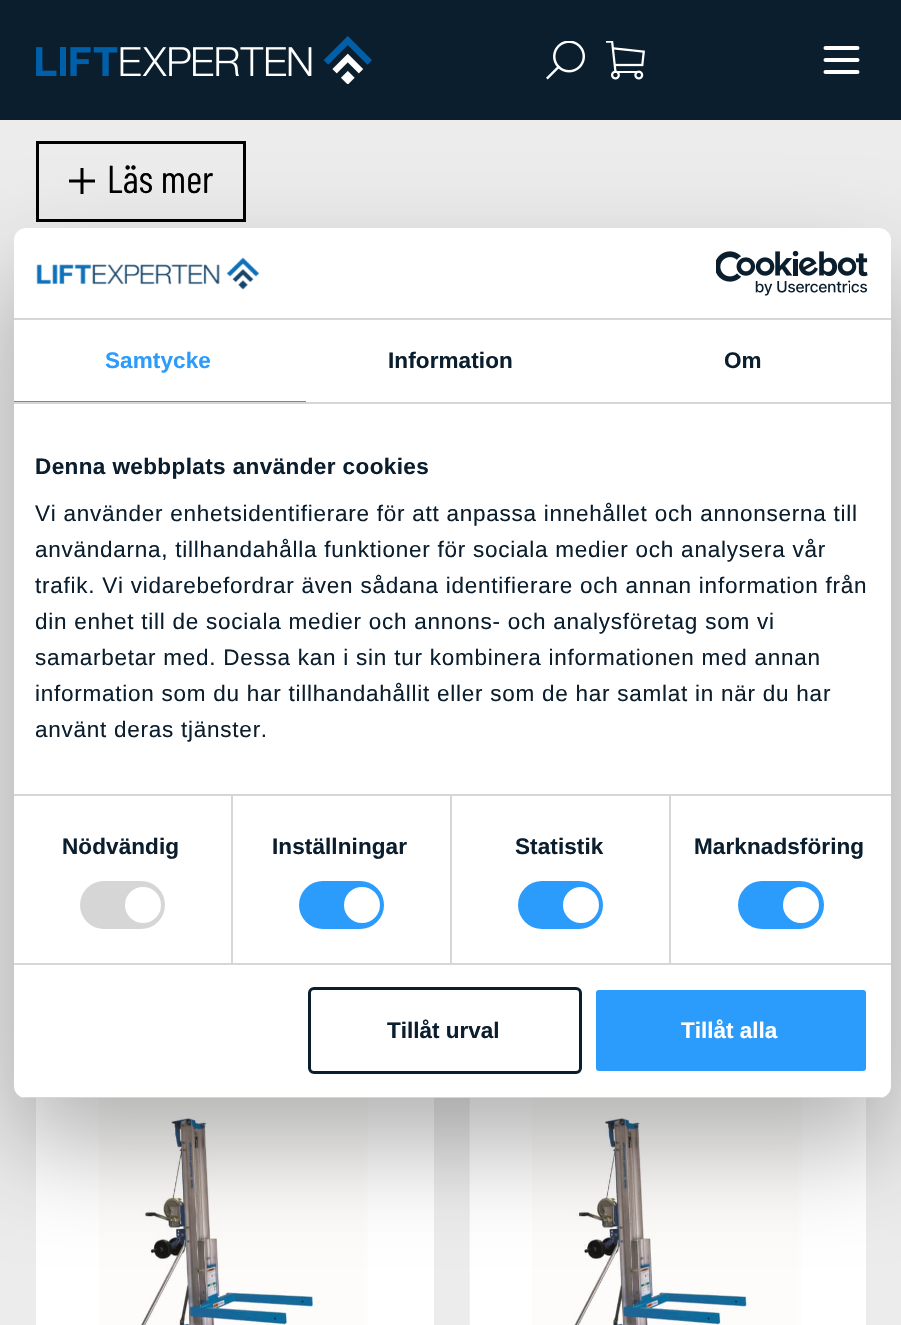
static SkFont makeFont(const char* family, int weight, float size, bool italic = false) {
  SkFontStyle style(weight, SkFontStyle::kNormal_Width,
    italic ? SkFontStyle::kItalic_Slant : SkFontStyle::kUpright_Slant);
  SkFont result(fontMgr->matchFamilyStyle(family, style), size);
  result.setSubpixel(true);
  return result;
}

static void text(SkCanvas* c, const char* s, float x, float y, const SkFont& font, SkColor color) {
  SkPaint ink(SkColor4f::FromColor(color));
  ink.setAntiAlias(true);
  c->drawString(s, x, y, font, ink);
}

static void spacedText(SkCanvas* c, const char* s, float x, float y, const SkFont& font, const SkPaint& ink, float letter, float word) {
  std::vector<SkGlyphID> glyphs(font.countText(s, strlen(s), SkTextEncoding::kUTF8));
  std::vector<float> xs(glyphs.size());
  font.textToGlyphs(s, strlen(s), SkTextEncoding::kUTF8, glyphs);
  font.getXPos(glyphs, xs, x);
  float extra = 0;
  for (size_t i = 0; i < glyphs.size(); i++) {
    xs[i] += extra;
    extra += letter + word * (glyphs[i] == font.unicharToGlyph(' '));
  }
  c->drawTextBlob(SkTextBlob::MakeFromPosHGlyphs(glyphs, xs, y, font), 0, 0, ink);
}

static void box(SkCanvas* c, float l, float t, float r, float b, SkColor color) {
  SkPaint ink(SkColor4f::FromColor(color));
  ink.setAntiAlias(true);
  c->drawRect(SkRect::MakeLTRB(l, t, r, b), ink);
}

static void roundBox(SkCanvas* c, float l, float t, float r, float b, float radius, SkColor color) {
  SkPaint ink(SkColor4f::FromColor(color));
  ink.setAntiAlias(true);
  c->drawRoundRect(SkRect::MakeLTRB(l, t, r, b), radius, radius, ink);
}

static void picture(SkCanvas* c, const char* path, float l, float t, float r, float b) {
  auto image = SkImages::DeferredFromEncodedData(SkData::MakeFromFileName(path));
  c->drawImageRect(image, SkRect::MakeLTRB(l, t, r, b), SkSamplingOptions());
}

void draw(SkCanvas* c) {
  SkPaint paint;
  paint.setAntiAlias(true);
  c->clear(0xffececec);
  box(c, 0, 0, 901, 120, 0xff0b1e2e);
  picture(c, "img_01.png", 36, 36, 372, 84);
  picture(c, "img_02.png", 546, 41, 585, 80);
  picture(c, "img_03.png", 606, 41, 645, 80);
  paint.setStyle(SkPaint::kStroke_Style);
  paint.setStrokeWidth(4);
  paint.setStrokeCap(SkPaint::kRound_Cap);
  paint.setStrokeJoin(SkPaint::kRound_Join);
  paint.setColor(0xffffffff);
  c->drawPath(SkPathBuilder().moveTo(825.5f, 48).lineTo(857.5f, 48).moveTo(825.5f, 60).lineTo(857.5f, 60).moveTo(825.5f, 72).lineTo(857.5f, 72).detach(), paint);
  paint.setStrokeWidth(3);
  paint.setStrokeCap(SkPaint::kButt_Cap);
  paint.setStrokeJoin(SkPaint::kMiter_Join);
  paint.setColor(0xff000000);
  c->drawRect(SkRect::MakeLTRB(37.5f, 142.5f, 244.5f, 220.5f), paint);
  c->drawPath(SkPathBuilder().moveTo(82, 168).lineTo(82, 194).moveTo(95, 181).lineTo(69, 181).detach(), paint);
  SkFont face1 = makeFont("Barlow Condensed", 400, 39);
  text(c, "Läs mer", 107, 193, face1, 0xff000000);
  box(c, 36, 1098, 434, 1325, 0xffffffff);
  picture(c, "img_04.png", 99, 1098, 368, 1325);
  picture(c, "img_05.png", 469, 1098, 470, 1325);
  box(c, 470, 1098, 866, 1325, 0xffffffff);
  picture(c, "img_06.png", 532, 1098, 802, 1325);
  paint.setStyle(SkPaint::kFill_Style);
  paint.setColor(0x4d000000);
  paint.setMaskFilter(SkMaskFilter::MakeBlur(kNormal_SkBlurStyle, 51));
  c->drawRoundRect(SkRect::MakeLTRB(14, 276, 891, 1146), 12, 12, paint);
  paint.setMaskFilter(nullptr);
  roundBox(c, 14, 228, 891, 1098, 12, 0xffffffff);
  box(c, 14, 318, 891, 320, 0xffd6d6d6);
  picture(c, "img_07.png", 36, 257, 260, 290);
  picture(c, "img_08.png", 716, 251, 868, 296);
  box(c, 14, 402, 891, 404, 0xffd6d6d6);
  box(c, 14, 401, 306, 402, 0xff2b9bfc);
  SkFont face2 = makeFont("Liberation Sans", 700, 22.5f);
  paint.setColor(0xff2b9bfc);
  spacedText(c, "Samtycke", 105, 368, face2, paint, 0.1f, 0);
  paint.setColor(0xff0b1e2e);
  spacedText(c, "Information", 388, 368, face2, paint, 0.1f, 0);
  spacedText(c, "Om", 724, 368, face2, paint, 0.1f, 0);
  box(c, 231, 795, 233, 963, 0xffd6d6d6);
  box(c, 450, 795, 452, 963, 0xffd6d6d6);
  box(c, 669, 795, 671, 963, 0xffd6d6d6);
  box(c, 14, 794, 891, 796, 0xffd6d6d6);
  spacedText(c, "Denna webbplats använder cookies", 35, 474, face2, paint, 0.4f, 0);
  SkFont face3 = makeFont("Liberation Sans", 400, 22.5f);
  spacedText(c, "Vi använder enhetsidentifierare för att anpassa innehållet och annonserna till", 35, 521, face3, paint, 0.75f, 0);
  spacedText(c, "användarna, tillhandahålla funktioner för sociala medier och analysera vår", 35, 557, face3, paint, 0.75f, 0);
  spacedText(c, "trafik. Vi vidarebefordrar även sådana identifierare och annan information från", 35, 593, face3, paint, 0.75f, 0);
  spacedText(c, "din enhet till de sociala medier och annons- och analysföretag som vi", 35, 629, face3, paint, 0.75f, 0);
  spacedText(c, "samarbetar med. Dessa kan i sin tur kombinera informationen med annan", 35, 665, face3, paint, 0.75f, 0);
  spacedText(c, "information som du har tillhandahållit eller som de har samlat in när du har", 35, 701, face3, paint, 0.75f, 0);
  spacedText(c, "använt deras tjänster.", 35, 737, face3, paint, 0.75f, 0);
  box(c, 14, 963, 891, 965, 0xffd6d6d6);
  spacedText(c, "Nödvändig", 62, 854, face2, paint, 0.1f, 0);
  roundBox(c, 80, 881, 165, 929, 24, 0xffd6d6d6);
  paint.setColor(0xffffffff);
  c->drawCircle(143, 905, 18, paint);
  paint.setColor(0xff0b1e2e);
  spacedText(c, "Inställningar", 272, 854, face2, paint, 0.1f, 0);
  roundBox(c, 299, 881, 384, 929, 24, 0xff2b9bfc);
  paint.setColor(0xffffffff);
  c->drawCircle(362, 905, 18, paint);
  paint.setColor(0xff0b1e2e);
  spacedText(c, "Statistik", 515, 854, face2, paint, 0.1f, 0);
  roundBox(c, 518, 881, 603, 929, 24, 0xff2b9bfc);
  paint.setColor(0xffffffff);
  c->drawCircle(581, 905, 18, paint);
  paint.setColor(0xff0b1e2e);
  spacedText(c, "Marknadsföring", 694, 854, face2, paint, 0.1f, 0);
  roundBox(c, 738, 881, 824, 929, 24, 0xff2b9bfc);
  paint.setColor(0xffffffff);
  c->drawCircle(801, 905, 18, paint);
  c->save();
  c->clipPath(SkPathBuilder().moveTo(26, 228).lineTo(879, 228).cubicTo(885.5f, 228, 891, 233.5f, 891, 240).lineTo(891, 1086).cubicTo(891, 1092.5f, 885.5f, 1098, 879, 1098).lineTo(26, 1098).cubicTo(19.5f, 1098, 14, 1092.5f, 14, 1086).lineTo(14, 240).cubicTo(14, 233.5f, 19.5f, 228, 26, 228).close().detach(), true);
  box(c, 14, 1097, 891, 1098, 0xffd6d6d6);
  c->restore();
  paint.setStyle(SkPaint::kStroke_Style);
  paint.setColor(0xff0b1e2e);
  c->drawRoundRect(SkRect::MakeLTRB(309.5f, 988.5f, 580.5f, 1072.5f), 4.5f, 4.5f, paint);
  text(c, "Tillåt urval", 387, 1038, face2, 0xff0b1e2e);
  paint.setStyle(SkPaint::kFill_Style);
  paint.setColor(0xff2b9bfc);
  c->drawRoundRect(SkRect::MakeLTRB(594.5f, 988.5f, 867.5f, 1072.5f), 4.5f, 4.5f, paint);
  paint.setStyle(SkPaint::kStroke_Style);
  paint.setColor(0xffffffff);
  c->drawRoundRect(SkRect::MakeLTRB(594.5f, 988.5f, 867.5f, 1072.5f), 4.5f, 4.5f, paint);
  text(c, "Tillåt alla", 681, 1038, face2, 0xffffffff);
}
